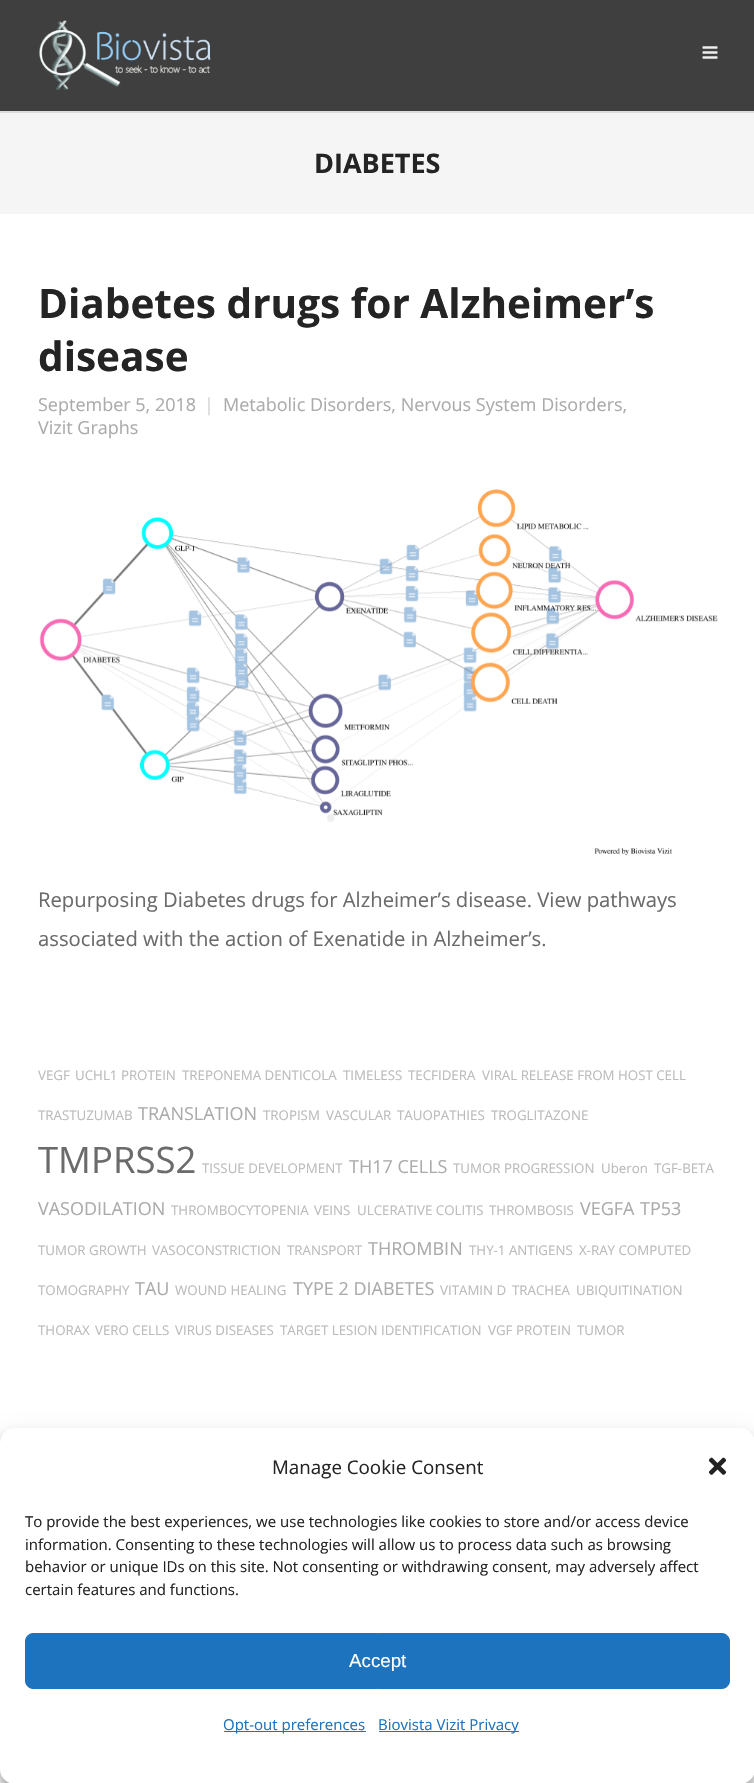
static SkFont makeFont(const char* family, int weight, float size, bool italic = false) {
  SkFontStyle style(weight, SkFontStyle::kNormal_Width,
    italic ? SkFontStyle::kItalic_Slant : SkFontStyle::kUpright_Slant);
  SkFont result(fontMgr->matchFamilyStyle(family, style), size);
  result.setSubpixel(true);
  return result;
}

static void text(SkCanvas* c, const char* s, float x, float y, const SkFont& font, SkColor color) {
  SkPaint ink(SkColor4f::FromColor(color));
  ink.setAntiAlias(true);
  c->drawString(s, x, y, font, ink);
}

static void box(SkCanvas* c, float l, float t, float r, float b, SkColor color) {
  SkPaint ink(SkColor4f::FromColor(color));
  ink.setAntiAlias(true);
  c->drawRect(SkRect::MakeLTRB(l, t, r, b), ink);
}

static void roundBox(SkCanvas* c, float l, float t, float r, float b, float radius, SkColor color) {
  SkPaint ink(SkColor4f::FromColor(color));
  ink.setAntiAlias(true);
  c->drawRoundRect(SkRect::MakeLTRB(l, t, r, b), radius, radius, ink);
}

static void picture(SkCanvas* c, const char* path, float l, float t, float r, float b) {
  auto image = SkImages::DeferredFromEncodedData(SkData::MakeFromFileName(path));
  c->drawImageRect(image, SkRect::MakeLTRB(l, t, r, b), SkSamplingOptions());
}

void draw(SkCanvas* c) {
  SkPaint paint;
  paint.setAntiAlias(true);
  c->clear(0xffffffff);
  box(c, 0, 111, 754, 113, 0xffdddddd);
  box(c, 0, 0, 754, 111, 0xff3f3f3f);
  picture(c, "img_01.png", 39, 20, 211, 90);
  picture(c, "img_02.png", 702, 46, 718, 59);
  box(c, 0, 113, 754, 214, 0xfff5f5f5);
  SkFont face1 = makeFont("Open Sans", 700, 27);
  text(c, "DIABETES", 314, 173, face1, 0xff242424);
  SkFont face2 = makeFont("Open Sans", 700, 40.5f);
  text(c, "Diabetes drugs for Alzheimer’s", 38, 318, face2, 0xff242424);
  text(c, "disease", 38, 371, face2, 0xff242424);
  SkFont face3 = makeFont("Open Sans", 400, 18);
  text(c, "|", 204, 411, face3, 0xffd3d3d3);
  text(c, "Metabolic Disorders, Nervous System Disorders,", 223, 411, face3, 0xffababab);
  text(c, "Vizit Graphs", 38, 434, face3, 0xffababab);
  text(c, "September 5, 2018", 38, 411, face3, 0xffababab);
  picture(c, "img_03.png", 39, 489, 718, 856);
  SkFont face4 = makeFont("Open Sans", 400, 20.25f);
  text(c, "Repurposing Diabetes drugs for Alzheimer’s disease. View pathways", 38, 907, face4, 0xff6b6b6b);
  text(c, "associated with the action of Exenatide in Alzheimer’s.", 38, 946, face4, 0xff6b6b6b);
  SkFont face5 = makeFont("Open Sans", 400, 13.3f);
  text(c, "VEGF", 38, 1080, face5, 0xffbbbbbb);
  text(c, "UCHL1 PROTEIN", 75, 1080, face5, 0xffbbbbbb);
  text(c, "TREPONEMA DENTICOLA", 182, 1080, face5, 0xffbbbbbb);
  text(c, "TIMELESS", 343, 1080, face5, 0xffbbbbbb);
  text(c, "TECFIDERA", 408, 1080, face5, 0xffbbbbbb);
  text(c, "VIRAL RELEASE FROM HOST CELL", 482, 1080, face5, 0xffbbbbbb);
  text(c, "TRASTUZUMAB", 38, 1120, face5, 0xffbbbbbb);
  text(c, "TRANSLATION", 138, 1120, face3, 0xffababab);
  text(c, "TROPISM", 263, 1120, face5, 0xffbbbbbb);
  text(c, "VASCULAR", 326, 1120, face5, 0xffbbbbbb);
  text(c, "TAUOPATHIES", 397, 1120, face5, 0xffbbbbbb);
  text(c, "TROGLITAZONE", 491, 1120, face5, 0xffbbbbbb);
  SkFont face6 = makeFont("Open Sans", 400, 36.5f);
  text(c, "TMPRSS2", 38, 1173, face6, 0xff6b6b6b);
  text(c, "TISSUE DEVELOPMENT", 202, 1173, face5, 0xffbbbbbb);
  text(c, "TH17 CELLS", 349, 1173, face3, 0xffababab);
  text(c, "TUMOR PROGRESSION", 453, 1173, face5, 0xffbbbbbb);
  text(c, "Uberon", 601, 1173, face5, 0xffbbbbbb);
  text(c, "TGF-BETA", 654, 1173, face5, 0xffbbbbbb);
  text(c, "VASODILATION", 38, 1215, face3, 0xffababab);
  text(c, "THROMBOCYTOPENIA", 171, 1215, face5, 0xffbbbbbb);
  text(c, "VEINS", 314, 1215, face5, 0xffbbbbbb);
  text(c, "ULCERATIVE COLITIS", 357, 1215, face5, 0xffbbbbbb);
  text(c, "THROMBOSIS", 489, 1215, face5, 0xffbbbbbb);
  text(c, "VEGFA", 580, 1215, face3, 0xffababab);
  text(c, "TP53", 640, 1215, face3, 0xffababab);
  text(c, "TUMOR GROWTH", 38, 1255, face5, 0xffbbbbbb);
  text(c, "VASOCONSTRICTION", 152, 1255, face5, 0xffbbbbbb);
  text(c, "TRANSPORT", 287, 1255, face5, 0xffbbbbbb);
  text(c, "THROMBIN", 368, 1255, face3, 0xffababab);
  text(c, "THY-1 ANTIGENS", 469, 1255, face5, 0xffbbbbbb);
  text(c, "X-RAY COMPUTED", 579, 1255, face5, 0xffbbbbbb);
  text(c, "TOMOGRAPHY", 38, 1295, face5, 0xffbbbbbb);
  text(c, "TAU", 135, 1295, face3, 0xffababab);
  text(c, "WOUND HEALING", 175, 1295, face5, 0xffbbbbbb);
  text(c, "TYPE 2 DIABETES", 293, 1295, face3, 0xffababab);
  text(c, "VITAMIN D", 440, 1295, face5, 0xffbbbbbb);
  text(c, "TRACHEA", 512, 1295, face5, 0xffbbbbbb);
  text(c, "UBIQUITINATION", 576, 1295, face5, 0xffbbbbbb);
  text(c, "THORAX", 38, 1335, face5, 0xffbbbbbb);
  text(c, "VERO CELLS", 95, 1335, face5, 0xffbbbbbb);
  text(c, "VIRUS DISEASES", 175, 1335, face5, 0xffbbbbbb);
  text(c, "TARGET LESION IDENTIFICATION", 280, 1335, face5, 0xffbbbbbb);
  text(c, "VGF PROTEIN", 488, 1335, face5, 0xffbbbbbb);
  text(c, "TUMOR", 577, 1335, face5, 0xffbbbbbb);
  paint.setColor(0x3b000000);
  paint.setMaskFilter(SkMaskFilter::MakeBlur(kNormal_SkBlurStyle, 4));
  c->drawRoundRect(SkRect::MakeLTRB(0, 1435, 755, 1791), 15, 15, paint);
  paint.setMaskFilter(nullptr);
  paint.setColor(0x30000000);
  paint.setMaskFilter(SkMaskFilter::MakeBlur(kNormal_SkBlurStyle, 12.5f));
  c->drawRoundRect(SkRect::MakeLTRB(0, 1440, 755, 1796), 15, 15, paint);
  paint.setMaskFilter(nullptr);
  roundBox(c, 0, 1428, 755, 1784, 15, 0xffffffff);
  SkFont face7 = makeFont("Open Sans", 400, 18.75f);
  text(c, "Manage Cookie Consent", 272, 1474, face7, 0xff242424);
  picture(c, "img_04.png", 708, 1457, 727, 1475);
  SkFont face8 = makeFont("Open Sans", 400, 15);
  text(c, "To provide the best experiences, we use technologies like cookies to store and/or access device", 25, 1527, face8, 0xff242424);
  text(c, "information. Consenting to these technologies will allow us to process data such as browsing", 25, 1550, face8, 0xff242424);
  text(c, "behavior or unique IDs on this site. Not consenting or withdrawing consent, may adversely affect", 25, 1572, face8, 0xff242424);
  text(c, "certain features and functions.", 25, 1595, face8, 0xff242424);
  paint.setColor(0xff1e73be);
  c->drawRoundRect(SkRect::MakeLTRB(25.5f, 1633.5f, 729.5f, 1688.5f), 7.5f, 7.5f, paint);
  paint.setStyle(SkPaint::kStroke_Style);
  paint.setStrokeWidth(1);
  c->drawRoundRect(SkRect::MakeLTRB(25.5f, 1633.5f, 729.5f, 1688.5f), 7.5f, 7.5f, paint);
  SkFont face9 = makeFont("Liberation Sans", 400, 18.75f);
  text(c, "Accept", 349, 1667, face9, 0xffffffff);
  box(c, 224, 1731, 366, 1732, 0xff1e73be);
  text(c, "Opt-out preferences", 223, 1730, face8, 0xff1e73be);
  box(c, 379, 1731, 519, 1732, 0xff1e73be);
  text(c, "Biovista Vizit Privacy", 378, 1730, face8, 0xff1e73be);
}
